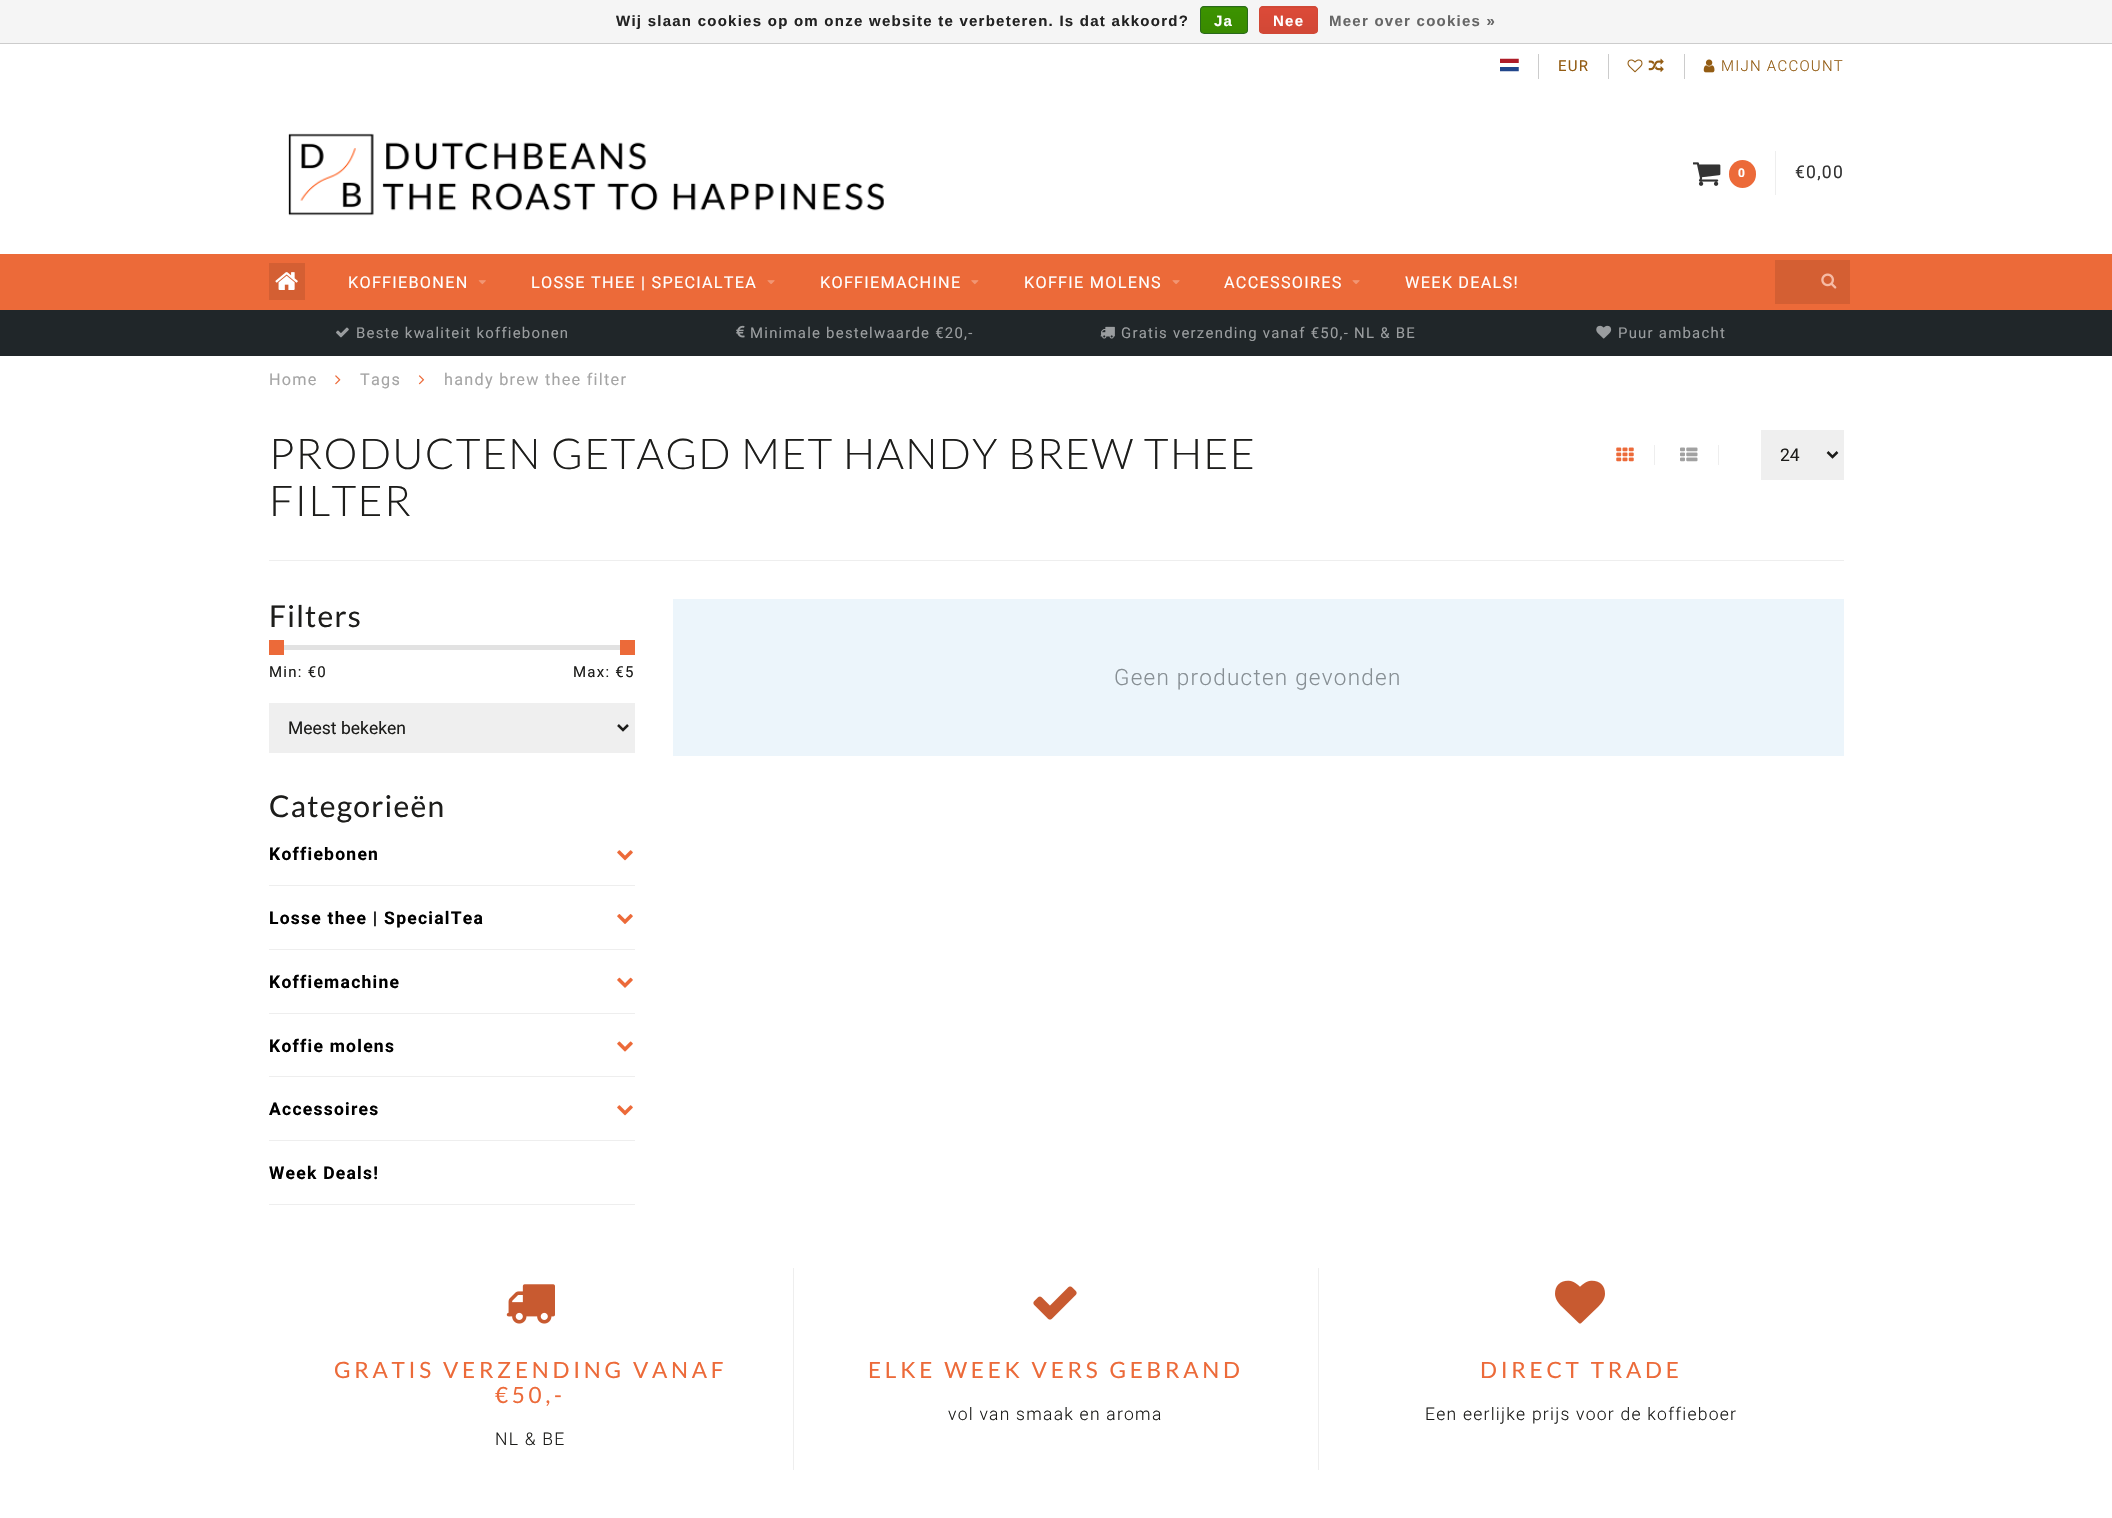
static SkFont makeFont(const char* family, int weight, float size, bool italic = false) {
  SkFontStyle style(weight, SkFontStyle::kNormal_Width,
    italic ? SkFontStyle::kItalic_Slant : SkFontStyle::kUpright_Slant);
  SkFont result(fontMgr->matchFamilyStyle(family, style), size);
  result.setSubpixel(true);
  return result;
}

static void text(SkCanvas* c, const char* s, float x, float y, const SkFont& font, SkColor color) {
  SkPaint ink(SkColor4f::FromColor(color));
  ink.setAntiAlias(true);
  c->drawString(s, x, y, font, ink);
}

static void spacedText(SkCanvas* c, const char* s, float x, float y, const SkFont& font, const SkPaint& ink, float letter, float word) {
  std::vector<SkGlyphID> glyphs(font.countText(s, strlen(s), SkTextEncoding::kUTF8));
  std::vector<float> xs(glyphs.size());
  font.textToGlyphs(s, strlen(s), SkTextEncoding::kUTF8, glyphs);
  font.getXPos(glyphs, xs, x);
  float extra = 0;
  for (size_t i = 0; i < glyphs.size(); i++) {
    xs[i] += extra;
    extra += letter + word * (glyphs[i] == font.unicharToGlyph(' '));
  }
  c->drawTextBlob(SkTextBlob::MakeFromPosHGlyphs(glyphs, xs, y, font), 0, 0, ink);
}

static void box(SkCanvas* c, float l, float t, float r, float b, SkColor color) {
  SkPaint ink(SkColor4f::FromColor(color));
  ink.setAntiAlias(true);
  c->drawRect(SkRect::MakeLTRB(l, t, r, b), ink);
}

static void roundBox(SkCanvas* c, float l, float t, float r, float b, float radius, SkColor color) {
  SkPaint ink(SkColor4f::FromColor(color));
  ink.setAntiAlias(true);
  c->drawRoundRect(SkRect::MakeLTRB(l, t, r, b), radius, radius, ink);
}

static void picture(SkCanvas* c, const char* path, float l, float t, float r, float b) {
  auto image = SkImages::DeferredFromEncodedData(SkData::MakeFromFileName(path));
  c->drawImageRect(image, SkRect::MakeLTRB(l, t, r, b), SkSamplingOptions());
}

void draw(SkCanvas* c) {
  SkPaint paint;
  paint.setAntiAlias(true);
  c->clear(0xffffffff);
  box(c, 0, 0, 2112, 43, 0xfff5f5f5);
  box(c, 0, 43, 2112, 44, 0xffcccccc);
  SkFont face1 = makeFont("Liberation Sans", 700, 15);
  paint.setColor(0xff222222);
  spacedText(c, "Wij slaan cookies op om onze website te verbeteren. Is dat akkoord?", 616, 26, face1, paint, 1.25f, 0);
  c->save();
  c->clipPath(SkPathBuilder().moveTo(1204, 6).lineTo(1244, 6).cubicTo(1246, 6, 1248, 8, 1248, 10).lineTo(1248, 30).cubicTo(1248, 32, 1246, 34, 1244, 34).lineTo(1204, 34).cubicTo(1202, 34, 1200, 32, 1200, 30).lineTo(1200, 10).cubicTo(1200, 8, 1202, 6, 1204, 6).close().detach(), true);
  {
    const SkColor colors[] = {0xff3c9300, 0xff398a00};
    const float stops[] = {0, 1};
    const SkPoint ends[] = {{1224, -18}, {1224, 7.5f}};
    paint.setShader(SkGradientShader::MakeLinear(ends, colors, stops, 2, SkTileMode::kClamp));
    paint.setAlpha(255);
  }
  c->drawRect(SkRect::MakeLTRB(1200, 6, 1248, 8), paint);
  {
    const SkColor colors[] = {0xff3c9300, 0xff398a00};
    const float stops[] = {0, 1};
    const SkPoint ends[] = {{1224, 7.5f}, {1224, 33}};
    paint.setShader(SkGradientShader::MakeLinear(ends, colors, stops, 2, SkTileMode::kClamp));
    paint.setAlpha(255);
  }
  c->drawRect(SkRect::MakeLTRB(1200, 8, 1248, 33), paint);
  c->restore();
  paint.setStyle(SkPaint::kStroke_Style);
  paint.setStrokeWidth(1);
  paint.setShader(nullptr);
  paint.setColor(0xff29691d);
  c->drawRoundRect(SkRect::MakeLTRB(1200.5f, 6.5f, 1247.5f, 33.5f), 3.5f, 3.5f, paint);
  paint.setStyle(SkPaint::kFill_Style);
  paint.setColor(0xffffffff);
  spacedText(c, "Ja", 1214, 26, face1, paint, 1.25f, 0);
  c->save();
  c->clipPath(SkPathBuilder().moveTo(1263, 6).lineTo(1314, 6).cubicTo(1316, 6, 1318, 8, 1318, 10).lineTo(1318, 30).cubicTo(1318, 32, 1316, 34, 1314, 34).lineTo(1263, 34).cubicTo(1261, 34, 1259, 32, 1259, 30).lineTo(1259, 10).cubicTo(1259, 8, 1261, 6, 1263, 6).close().detach(), true);
  {
    const SkColor colors[] = {0xffdc4a38, 0xffd14836};
    const float stops[] = {0, 1};
    const SkPoint ends[] = {{1288, -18}, {1288, 7.5f}};
    paint.setShader(SkGradientShader::MakeLinear(ends, colors, stops, 2, SkTileMode::kClamp));
    paint.setAlpha(255);
  }
  c->drawRect(SkRect::MakeLTRB(1259, 6, 1318, 8), paint);
  {
    const SkColor colors[] = {0xffdc4a38, 0xffd14836};
    const float stops[] = {0, 1};
    const SkPoint ends[] = {{1288, 7.5f}, {1288, 33}};
    paint.setShader(SkGradientShader::MakeLinear(ends, colors, stops, 2, SkTileMode::kClamp));
    paint.setAlpha(255);
  }
  c->drawRect(SkRect::MakeLTRB(1259, 8, 1318, 33), paint);
  c->restore();
  paint.setStyle(SkPaint::kStroke_Style);
  paint.setShader(nullptr);
  paint.setColor(0xffd14836);
  c->drawRoundRect(SkRect::MakeLTRB(1259.5f, 6.5f, 1317.5f, 33.5f), 3.5f, 3.5f, paint);
  paint.setStyle(SkPaint::kFill_Style);
  paint.setColor(0xffffffff);
  spacedText(c, "Nee", 1273, 26, face1, paint, 1.25f, 0);
  paint.setColor(0xff666666);
  spacedText(c, "Meer over cookies »", 1329, 26, face1, paint, 1.25f, 0);
  box(c, 1538, 54, 1539, 79, 0xffcccccc);
  picture(c, "img_01.png", 1500, 58, 1519, 72);
  box(c, 1608, 54, 1609, 79, 0xffcccccc);
  SkFont face2 = makeFont("Roboto", 400, 15);
  paint.setColor(0xff935c13);
  spacedText(c, "EUR", 1558, 71, face2, paint, 1.25f, 0);
  box(c, 1684, 54, 1685, 79, 0xffcccccc);
  picture(c, "img_02.png", 1627, 59, 1643, 73);
  picture(c, "img_03.png", 1648, 58, 1664, 72);
  picture(c, "img_04.png", 1703, 59, 1715, 73);
  SkFont face3 = makeFont("Roboto", 300, 15);
  spacedText(c, "MIJN ACCOUNT", 1721, 71, face3, paint, 1.25f, 0);
  picture(c, "img_05.png", 288, 133, 884, 216);
  picture(c, "img_06.png", 1693, 162, 1721, 186);
  roundBox(c, 1729, 160, 1756, 188, 13.5f, 0xffec6a39);
  SkFont face4 = makeFont("Roboto", 700, 12);
  paint.setColor(0xffffffff);
  spacedText(c, "0", 1738, 177, face4, paint, 1.25f, 0);
  box(c, 1775, 151, 1776, 195, 0xffeeeeee);
  SkFont face5 = makeFont("Roboto", 400, 17.5f);
  paint.setColor(0xff333333);
  spacedText(c, "€0,00", 1795, 178, face5, paint, 1.25f, 0);
  box(c, 0, 254, 2112, 310, 0xffec6a39);
  box(c, 269, 263, 305, 300, 0xffd45f33);
  picture(c, "img_07.png", 275, 272, 298, 290);
  SkFont face6 = makeFont("Roboto", 400, 16.25f);
  paint.setColor(0xffffffff);
  spacedText(c, "KOFFIEBONEN", 348, 288, face6, paint, 1.25f, 0);
  picture(c, "img_08.png", 478, 280, 486, 285);
  spacedText(c, "LOSSE THEE | SPECIALTEA", 531, 288, face6, paint, 1.25f, 0);
  picture(c, "img_09.png", 767, 280, 775, 284);
  spacedText(c, "KOFFIEMACHINE", 820, 288, face6, paint, 1.25f, 0);
  picture(c, "img_10.png", 971, 280, 979, 285);
  spacedText(c, "KOFFIE MOLENS", 1024, 288, face6, paint, 1.25f, 0);
  picture(c, "img_09.png", 1172, 280, 1180, 284);
  spacedText(c, "ACCESSOIRES", 1224, 288, face6, paint, 1.25f, 0);
  picture(c, "img_09.png", 1352, 280, 1360, 284);
  spacedText(c, "WEEK DEALS!", 1405, 288, face6, paint, 1.25f, 0);
  box(c, 1775, 260, 1850, 304, 0xffd45f33);
  picture(c, "img_11.png", 1821, 273, 1837, 289);
  box(c, 0, 310, 2112, 356, 0xff202629);
  picture(c, "img_12.png", 336, 327, 349, 338);
  SkFont face7 = makeFont("Roboto", 400, 14.9f);
  paint.setColor(0xff9a9d9f);
  spacedText(c, "Beste kwaliteit koffiebonen", 356, 338, face7, paint, 1.25f, 0);
  picture(c, "img_13.png", 736, 325, 745, 338);
  spacedText(c, "Minimale bestelwaarde €20,-", 750, 338, face7, paint, 1.25f, 0);
  picture(c, "img_14.png", 1100, 326, 1115, 339);
  spacedText(c, "Gratis verzending vanaf €50,- NL & BE", 1121, 338, face7, paint, 1.25f, 0);
  picture(c, "img_15.png", 1596, 325, 1612, 339);
  spacedText(c, "Puur ambacht", 1618, 338, face7, paint, 1.25f, 0);
  paint.setColor(0xffa5a5a5);
  spacedText(c, "Home", 269, 385, face6, paint, 1.25f, 0);
  picture(c, "img_16.png", 335, 375, 341, 385);
  spacedText(c, "Tags", 360, 385, face6, paint, 1.25f, 0);
  picture(c, "img_17.png", 418, 375, 425, 385);
  spacedText(c, "handy brew thee filter", 444, 385, face6, paint, 1.25f, 0);
  SkFont face8 = makeFont("Lato", 300, 42.5f);
  paint.setColor(0xff1d1d1b);
  spacedText(c, "PRODUCTEN GETAGD MET HANDY BREW THEE", 269, 469, face8, paint, 1.25f, 0);
  spacedText(c, "FILTER", 269, 516, face8, paint, 1.25f, 0);
  box(c, 1654, 445, 1655, 465, 0xffeeeeee);
  picture(c, "img_18.png", 1616, 447, 1634, 462);
  box(c, 1718, 445, 1719, 465, 0xffeeeeee);
  picture(c, "img_19.png", 1680, 447, 1698, 462);
  box(c, 1761, 430, 1844, 480, 0xffefefef);
  paint.setStyle(SkPaint::kStroke_Style);
  paint.setStrokeWidth(2.5f);
  c->drawPath(SkPathBuilder().moveTo(1827.5f, 452).lineTo(1832.5f, 457).lineTo(1837.5f, 452).detach(), paint);
  text(c, "24", 1780, 461, face5, 0xff1d1d1b);
  box(c, 269, 560, 1844, 561, 0xffeeeeee);
  SkFont face9 = makeFont("Lato", 400, 30);
  paint.setStyle(SkPaint::kFill_Style);
  spacedText(c, "Filters", 269, 627, face9, paint, 1.25f, 0);
  box(c, 281, 645, 620, 650, 0xffe2e2e2);
  box(c, 269, 640, 284, 655, 0xffec6a39);
  box(c, 620, 640, 635, 655, 0xffec6a39);
  spacedText(c, "Min: €0", 269, 677, face2, paint, 1.25f, 0);
  spacedText(c, "Max: €5", 573, 677, face2, paint, 1.25f, 0);
  box(c, 269, 703, 635, 753, 0xffefefef);
  paint.setStyle(SkPaint::kStroke_Style);
  c->drawPath(SkPathBuilder().moveTo(618, 725).lineTo(623, 730).lineTo(628, 725).detach(), paint);
  text(c, "Meest bekeken", 288, 734, face5, 0xff1d1d1b);
  paint.setStyle(SkPaint::kFill_Style);
  spacedText(c, "Categorieën", 269, 817, face9, paint, 1.25f, 0);
  box(c, 269, 885, 635, 886, 0xffeeeeee);
  SkFont face10 = makeFont("Roboto", 700, 17.5f);
  paint.setColor(0xff000000);
  spacedText(c, "Koffiebonen", 269, 860, face10, paint, 1.25f, 0);
  picture(c, "img_20.png", 617, 850, 633, 861);
  box(c, 269, 949, 635, 950, 0xffeeeeee);
  spacedText(c, "Losse thee | SpecialTea", 269, 924, face10, paint, 1.25f, 0);
  picture(c, "img_21.png", 617, 914, 633, 924);
  box(c, 269, 1013, 635, 1014, 0xffeeeeee);
  spacedText(c, "Koffiemachine", 269, 988, face10, paint, 1.25f, 0);
  picture(c, "img_22.png", 617, 977, 633, 988);
  box(c, 269, 1076, 635, 1077, 0xffeeeeee);
  spacedText(c, "Koffie molens", 269, 1052, face10, paint, 1.25f, 0);
  picture(c, "img_23.png", 617, 1041, 633, 1052);
  box(c, 269, 1140, 635, 1141, 0xffeeeeee);
  spacedText(c, "Accessoires", 269, 1115, face10, paint, 1.25f, 0);
  picture(c, "img_20.png", 617, 1105, 633, 1116);
  box(c, 269, 1204, 635, 1205, 0xffeeeeee);
  spacedText(c, "Week Deals!", 269, 1179, face10, paint, 1.25f, 0);
  box(c, 673, 599, 1844, 756, 0xffecf5fb);
  SkFont face11 = makeFont("Roboto", 300, 22.5f);
  paint.setColor(0xff878f94);
  spacedText(c, "Geen producten gevonden", 1114, 685, face11, paint, 1.25f, 0);
  box(c, 793, 1268, 794, 1470, 0xffeeeeee);
  picture(c, "img_24.png", 506, 1284, 555, 1324);
  SkFont face12 = makeFont("Lato", 400, 22.5f);
  paint.setColor(0xffec6a39);
  spacedText(c, "GRATIS VERZENDING VANAF", 334, 1378, face12, paint, 3.75f, 0);
  spacedText(c, "€50,-", 495, 1403, face12, paint, 3.75f, 0);
  SkFont face13 = makeFont("Roboto", 300, 17.5f);
  paint.setColor(0xff1d1d1b);
  spacedText(c, "NL & BE", 495, 1445, face13, paint, 1.25f, 0);
  box(c, 1318, 1268, 1319, 1470, 0xffeeeeee);
  picture(c, "img_25.png", 1033, 1286, 1077, 1320);
  paint.setColor(0xffec6a39);
  spacedText(c, "ELKE WEEK VERS GEBRAND", 868, 1378, face12, paint, 3.75f, 0);
  paint.setColor(0xff1d1d1b);
  spacedText(c, "vol van smaak en aroma", 948, 1420, face13, paint, 1.25f, 0);
  picture(c, "img_26.png", 1555, 1280, 1605, 1324);
  paint.setColor(0xffec6a39);
  spacedText(c, "DIRECT TRADE", 1480, 1378, face12, paint, 3.75f, 0);
  paint.setColor(0xff1d1d1b);
  spacedText(c, "Een eerlijke prijs voor de koffieboer", 1425, 1420, face13, paint, 1.25f, 0);
}
